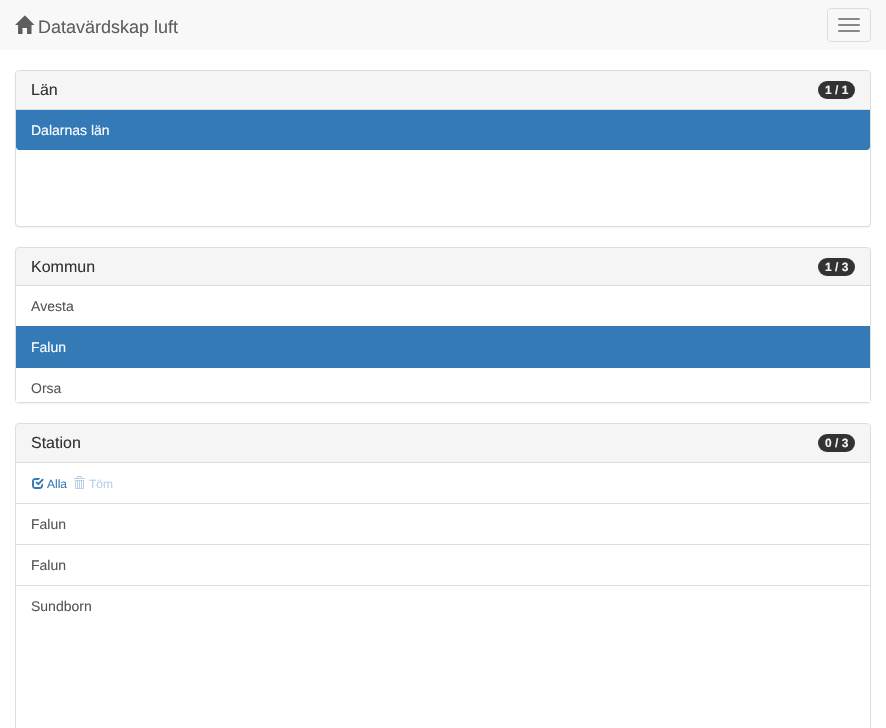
static SkFont makeFont(const char* family, int weight, float size, bool italic = false) {
  SkFontStyle style(weight, SkFontStyle::kNormal_Width,
    italic ? SkFontStyle::kItalic_Slant : SkFontStyle::kUpright_Slant);
  SkFont result(fontMgr->matchFamilyStyle(family, style), size);
  result.setSubpixel(true);
  return result;
}

static void text(SkCanvas* c, const char* s, float x, float y, const SkFont& font, SkColor color) {
  SkPaint ink(SkColor4f::FromColor(color));
  ink.setAntiAlias(true);
  c->drawString(s, x, y, font, ink);
}

static void box(SkCanvas* c, float l, float t, float r, float b, SkColor color) {
  SkPaint ink(SkColor4f::FromColor(color));
  ink.setAntiAlias(true);
  c->drawRect(SkRect::MakeLTRB(l, t, r, b), ink);
}

static void roundBox(SkCanvas* c, float l, float t, float r, float b, float radius, SkColor color) {
  SkPaint ink(SkColor4f::FromColor(color));
  ink.setAntiAlias(true);
  c->drawRoundRect(SkRect::MakeLTRB(l, t, r, b), radius, radius, ink);
}

static void picture(SkCanvas* c, const char* path, float l, float t, float r, float b) {
  auto image = SkImages::DeferredFromEncodedData(SkData::MakeFromFileName(path));
  c->drawImageRect(image, SkRect::MakeLTRB(l, t, r, b), SkSamplingOptions());
}

void draw(SkCanvas* c) {
  SkPaint paint;
  paint.setAntiAlias(true);
  c->clear(0xffffffff);
  box(c, 0, 0, 886, 50, 0xfff8f8f8);
  picture(c, "img_01.png", 15, 15, 35, 34);
  SkFont face1 = makeFont("Liberation Sans", 400, 18);
  text(c, "Datavärdskap luft", 38, 33, face1, 0xff5e5e5e);
  paint.setStyle(SkPaint::kStroke_Style);
  paint.setStrokeWidth(1);
  paint.setColor(0xffdddddd);
  c->drawRoundRect(SkRect::MakeLTRB(827.5f, 8.5f, 870.5f, 41.5f), 3.5f, 3.5f, paint);
  roundBox(c, 838, 18, 860, 20, 1, 0xff888888);
  roundBox(c, 838, 24, 860, 26, 1, 0xff888888);
  roundBox(c, 838, 30, 860, 32, 1, 0xff888888);
  paint.setStyle(SkPaint::kFill_Style);
  paint.setColor(0x0d000000);
  paint.setMaskFilter(SkMaskFilter::MakeBlur(kNormal_SkBlurStyle, 0.5f));
  c->drawRoundRect(SkRect::MakeLTRB(15, 71, 871, 228), 4, 4, paint);
  paint.setMaskFilter(nullptr);
  paint.setColor(0xffffffff);
  c->drawRoundRect(SkRect::MakeLTRB(15.5f, 70.5f, 870.5f, 226.5f), 3.5f, 3.5f, paint);
  paint.setStyle(SkPaint::kStroke_Style);
  paint.setColor(0xffdddddd);
  c->drawRoundRect(SkRect::MakeLTRB(15.5f, 70.5f, 870.5f, 226.5f), 3.5f, 3.5f, paint);
  paint.setStyle(SkPaint::kFill_Style);
  paint.setColor(0xfff5f5f5);
  c->drawPath(SkPathBuilder().moveTo(19, 71).lineTo(867, 71).cubicTo(868.5f, 71, 870, 72.5f, 870, 74).lineTo(870, 110).lineTo(16, 110).lineTo(16, 74).cubicTo(16, 72.5f, 17.5f, 71, 19, 71).close().detach(), paint);
  box(c, 16, 109, 870, 110, 0xffdddddd);
  SkFont face2 = makeFont("Liberation Sans", 400, 16);
  text(c, "Län", 31, 95, face2, 0xff333333);
  roundBox(c, 818, 81, 855, 99, 9, 0xff333333);
  SkFont face3 = makeFont("Liberation Sans", 700, 12);
  text(c, "1 / 1", 825, 94, face3, 0xfff5f5f5);
  paint.setColor(0xff337ab7);
  c->drawPath(SkPathBuilder().moveTo(16, 110).lineTo(870, 110).lineTo(870, 147).cubicTo(870, 148.5f, 868.5f, 150, 867, 150).lineTo(19, 150).cubicTo(17.5f, 150, 16, 148.5f, 16, 147).close().detach(), paint);
  SkFont face4 = makeFont("Liberation Sans", 400, 14);
  text(c, "Dalarnas län", 31, 135, face4, 0xffffffff);
  paint.setColor(0x0d000000);
  paint.setMaskFilter(SkMaskFilter::MakeBlur(kNormal_SkBlurStyle, 0.5f));
  c->drawRoundRect(SkRect::MakeLTRB(15, 248, 871, 404), 4, 4, paint);
  paint.setMaskFilter(nullptr);
  paint.setColor(0xffffffff);
  c->drawRoundRect(SkRect::MakeLTRB(15.5f, 247.5f, 870.5f, 402.5f), 3.5f, 3.5f, paint);
  paint.setStyle(SkPaint::kStroke_Style);
  paint.setColor(0xffdddddd);
  c->drawRoundRect(SkRect::MakeLTRB(15.5f, 247.5f, 870.5f, 402.5f), 3.5f, 3.5f, paint);
  paint.setStyle(SkPaint::kFill_Style);
  paint.setColor(0xfff5f5f5);
  c->drawPath(SkPathBuilder().moveTo(19, 248).lineTo(867, 248).cubicTo(868.5f, 248, 870, 249.5f, 870, 251).lineTo(870, 286).lineTo(16, 286).lineTo(16, 251).cubicTo(16, 249.5f, 17.5f, 248, 19, 248).close().detach(), paint);
  box(c, 16, 285, 870, 286, 0xffdddddd);
  text(c, "Kommun", 31, 272, face2, 0xff333333);
  roundBox(c, 818, 258, 855, 276, 9, 0xff333333);
  text(c, "1 / 3", 825, 271, face3, 0xfff5f5f5);
  text(c, "Avesta", 31, 311, face4, 0xff555555);
  box(c, 16, 326, 870, 368, 0xff337ab7);
  text(c, "Falun", 31, 352, face4, 0xffffffff);
  box(c, 16, 399, 870, 402, 0xffffffff);
  text(c, "Orsa", 31, 393, face4, 0xff555555);
  paint.setStyle(SkPaint::kStroke_Style);
  paint.setColor(0xffdddddd);
  c->drawRoundRect(SkRect::MakeLTRB(15.5f, 423.5f, 870.5f, 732.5f), 3.5f, 3.5f, paint);
  paint.setStyle(SkPaint::kFill_Style);
  paint.setColor(0xfff5f5f5);
  c->drawPath(SkPathBuilder().moveTo(19, 424).lineTo(867, 424).cubicTo(868.5f, 424, 870, 425.5f, 870, 427).lineTo(870, 463).lineTo(16, 463).lineTo(16, 427).cubicTo(16, 425.5f, 17.5f, 424, 19, 424).close().detach(), paint);
  box(c, 16, 462, 870, 463, 0xffdddddd);
  text(c, "Station", 31, 448, face2, 0xff333333);
  roundBox(c, 818, 434, 855, 452, 9, 0xff333333);
  text(c, "0 / 3", 825, 447, face3, 0xfff5f5f5);
  picture(c, "img_02.png", 32, 478, 44, 489);
  SkFont face5 = makeFont("Liberation Sans", 400, 12);
  text(c, "Alla", 47, 488, face5, 0xff337ab7);
  picture(c, "img_03.png", 74, 476, 85, 489);
  text(c, "Töm", 89, 488, face5, 0xffb8d0e6);
  box(c, 16, 503, 870, 504, 0xffdddddd);
  box(c, 16, 544, 870, 545, 0xffdddddd);
  text(c, "Falun", 31, 529, face4, 0xff555555);
  text(c, "Falun", 31, 570, face4, 0xff555555);
  box(c, 16, 585, 870, 586, 0xffdddddd);
  text(c, "Sundborn", 31, 611, face4, 0xff555555);
}
